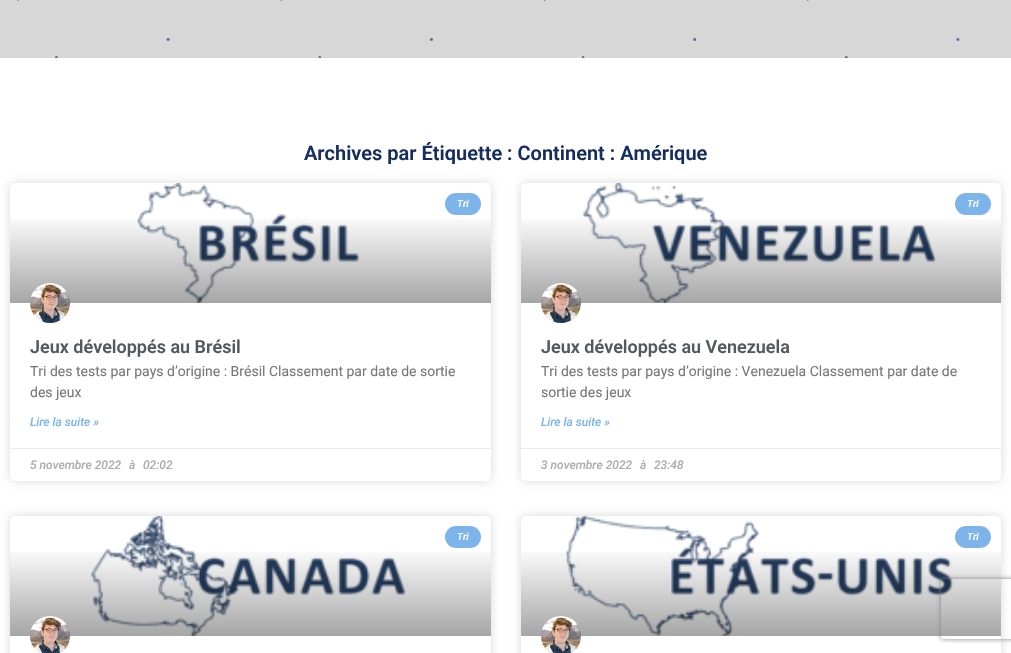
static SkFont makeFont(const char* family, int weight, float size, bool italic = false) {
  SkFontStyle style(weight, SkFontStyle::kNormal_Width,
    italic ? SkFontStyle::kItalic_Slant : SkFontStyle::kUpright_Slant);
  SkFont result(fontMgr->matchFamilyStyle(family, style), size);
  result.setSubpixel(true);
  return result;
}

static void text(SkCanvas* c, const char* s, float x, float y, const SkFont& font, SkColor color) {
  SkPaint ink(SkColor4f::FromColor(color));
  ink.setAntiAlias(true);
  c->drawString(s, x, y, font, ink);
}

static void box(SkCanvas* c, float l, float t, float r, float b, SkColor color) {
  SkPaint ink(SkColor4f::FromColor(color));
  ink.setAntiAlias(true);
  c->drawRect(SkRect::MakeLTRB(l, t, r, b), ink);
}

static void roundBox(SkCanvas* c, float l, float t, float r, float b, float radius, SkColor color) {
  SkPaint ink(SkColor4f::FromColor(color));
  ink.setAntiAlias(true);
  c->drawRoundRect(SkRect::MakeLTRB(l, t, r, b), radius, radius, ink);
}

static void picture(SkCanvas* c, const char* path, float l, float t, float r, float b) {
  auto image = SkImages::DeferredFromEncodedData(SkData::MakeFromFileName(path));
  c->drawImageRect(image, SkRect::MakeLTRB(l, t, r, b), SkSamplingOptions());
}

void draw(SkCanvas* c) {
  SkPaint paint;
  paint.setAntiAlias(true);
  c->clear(0xffffffff);
  picture(c, "img_01.png", 0, 0, 1011, 58);
  SkFont face1 = makeFont("Roboto", 600, 20);
  text(c, "Archives par Étiquette : Continent : Amérique", 304, 160, face1, 0xff162e5d);
  paint.setColor(0x26000000);
  paint.setMaskFilter(SkMaskFilter::MakeBlur(kNormal_SkBlurStyle, 5));
  c->drawRoundRect(SkRect::MakeLTRB(10, 183, 491, 481), 5, 5, paint);
  paint.setMaskFilter(nullptr);
  roundBox(c, 10, 183, 491, 481, 5, 0xffffffff);
  picture(c, "img_02.png", 137, 183, 360, 303);
  {
    const SkColor colors[] = {0x59000000, 0x00000000};
    const float stops[] = {0, 0.75f};
    const SkPoint ends[] = {{251, 303}, {251, 183}};
    paint.setShader(SkGradientShader::MakeLinear(ends, colors, stops, 2, SkTileMode::kClamp));
    paint.setAlpha(255);
  }
  c->drawRect(SkRect::MakeLTRB(10, 219, 491, 303), paint);
  roundBox(c, 445, 193, 481, 215, 11, 0xff7db5ea);
  SkFont face2 = makeFont("Roboto", 500, 10, true);
  text(c, "Tri", 457, 207, face2, 0xffffffff);
  picture(c, "img_03.png", 30, 283, 70, 323);
  SkFont face3 = makeFont("Roboto", 600, 18);
  text(c, "Jeux développés au Brésil", 30, 353, face3, 0xff54595f);
  SkFont face4 = makeFont("Roboto", 400, 14);
  text(c, "Tri des tests par pays d’origine : Brésil Classement par date de sortie", 30, 376, face4, 0xff777777);
  text(c, "des jeux", 30, 397, face4, 0xff777777);
  SkFont face5 = makeFont("Roboto", 500, 12, true);
  text(c, "Lire la suite »", 30, 426, face5, 0xff7db5ea);
  box(c, 10, 448, 491, 449, 0xffeaeaea);
  text(c, "5 novembre 2022", 30, 469, face5, 0xffadadad);
  text(c, "à", 129, 469, face5, 0xffadadad);
  text(c, "02:02", 143, 469, face5, 0xffadadad);
  paint.setShader(nullptr);
  paint.setColor(0x26000000);
  paint.setMaskFilter(SkMaskFilter::MakeBlur(kNormal_SkBlurStyle, 5));
  c->drawRoundRect(SkRect::MakeLTRB(521, 183, 1001, 481), 5, 5, paint);
  paint.setMaskFilter(nullptr);
  roundBox(c, 521, 183, 1001, 481, 5, 0xffffffff);
  picture(c, "img_04.png", 582, 183, 937, 303);
  {
    const SkColor colors[] = {0x59000000, 0x00000000};
    const float stops[] = {0, 0.75f};
    const SkPoint ends[] = {{761, 303}, {761, 183}};
    paint.setShader(SkGradientShader::MakeLinear(ends, colors, stops, 2, SkTileMode::kClamp));
    paint.setAlpha(255);
  }
  c->drawRect(SkRect::MakeLTRB(521, 219, 1001, 303), paint);
  roundBox(c, 955, 193, 991, 215, 11, 0xff7db5ea);
  text(c, "Tri", 967, 207, face2, 0xffffffff);
  picture(c, "img_05.png", 541, 283, 581, 323);
  text(c, "Jeux développés au Venezuela", 541, 353, face3, 0xff54595f);
  text(c, "Tri des tests par pays d’origine : Venezuela Classement par date de", 541, 376, face4, 0xff777777);
  text(c, "sortie des jeux", 541, 397, face4, 0xff777777);
  text(c, "Lire la suite »", 541, 426, face5, 0xff7db5ea);
  box(c, 521, 448, 1001, 449, 0xffeaeaea);
  text(c, "3 novembre 2022", 541, 469, face5, 0xffadadad);
  text(c, "à", 640, 469, face5, 0xffadadad);
  text(c, "23:48", 654, 469, face5, 0xffadadad);
  paint.setShader(nullptr);
  paint.setColor(0x26000000);
  paint.setMaskFilter(SkMaskFilter::MakeBlur(kNormal_SkBlurStyle, 5));
  c->drawRoundRect(SkRect::MakeLTRB(10, 516, 491, 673), 5, 5, paint);
  paint.setMaskFilter(nullptr);
  roundBox(c, 10, 516, 491, 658, 5, 0xffffffff);
  picture(c, "img_06.png", 91, 516, 406, 636);
  {
    const SkColor colors[] = {0x59000000, 0x00000000};
    const float stops[] = {0, 0.75f};
    const SkPoint ends[] = {{251, 636}, {251, 516}};
    paint.setShader(SkGradientShader::MakeLinear(ends, colors, stops, 2, SkTileMode::kClamp));
    paint.setAlpha(255);
  }
  c->drawRect(SkRect::MakeLTRB(10, 552, 491, 636), paint);
  roundBox(c, 445, 526, 481, 548, 11, 0xff7db5ea);
  text(c, "Tri", 457, 540, face2, 0xffffffff);
  picture(c, "img_07.png", 30, 616, 70, 653);
  paint.setShader(nullptr);
  paint.setColor(0x26000000);
  paint.setMaskFilter(SkMaskFilter::MakeBlur(kNormal_SkBlurStyle, 5));
  c->drawRoundRect(SkRect::MakeLTRB(521, 516, 1001, 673), 5, 5, paint);
  paint.setMaskFilter(nullptr);
  roundBox(c, 521, 516, 1001, 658, 5, 0xffffffff);
  picture(c, "img_08.png", 565, 516, 954, 636);
  {
    const SkColor colors[] = {0x59000000, 0x00000000};
    const float stops[] = {0, 0.75f};
    const SkPoint ends[] = {{761, 636}, {761, 516}};
    paint.setShader(SkGradientShader::MakeLinear(ends, colors, stops, 2, SkTileMode::kClamp));
    paint.setAlpha(255);
  }
  c->drawRect(SkRect::MakeLTRB(521, 552, 1001, 636), paint);
  roundBox(c, 955, 526, 991, 548, 11, 0xff7db5ea);
  text(c, "Tri", 967, 540, face2, 0xffffffff);
  picture(c, "img_09.png", 541, 616, 581, 653);
  c->save();
  c->clipPath(SkPathBuilder(SkPathFillType::kEvenOdd).moveTo(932, 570).lineTo(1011, 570).lineTo(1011, 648).lineTo(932, 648).close().moveTo(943, 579).lineTo(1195, 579).cubicTo(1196, 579, 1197, 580, 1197, 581).lineTo(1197, 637).cubicTo(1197, 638, 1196, 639, 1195, 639).lineTo(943, 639).cubicTo(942, 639, 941, 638, 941, 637).lineTo(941, 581).cubicTo(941, 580, 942, 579, 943, 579).close().detach(), true);
  paint.setShader(nullptr);
  paint.setColor(0xff808080);
  paint.setMaskFilter(SkMaskFilter::MakeBlur(kNormal_SkBlurStyle, 2.5f));
  c->drawRoundRect(SkRect::MakeLTRB(941, 579, 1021, 639), 2, 2, paint);
  paint.setMaskFilter(nullptr);
  c->restore();
}
